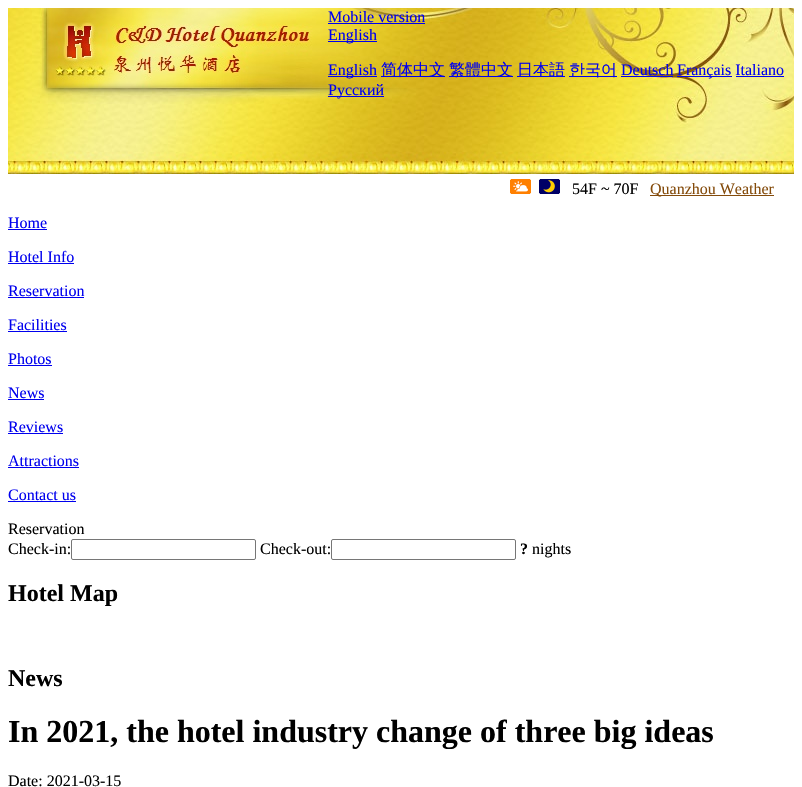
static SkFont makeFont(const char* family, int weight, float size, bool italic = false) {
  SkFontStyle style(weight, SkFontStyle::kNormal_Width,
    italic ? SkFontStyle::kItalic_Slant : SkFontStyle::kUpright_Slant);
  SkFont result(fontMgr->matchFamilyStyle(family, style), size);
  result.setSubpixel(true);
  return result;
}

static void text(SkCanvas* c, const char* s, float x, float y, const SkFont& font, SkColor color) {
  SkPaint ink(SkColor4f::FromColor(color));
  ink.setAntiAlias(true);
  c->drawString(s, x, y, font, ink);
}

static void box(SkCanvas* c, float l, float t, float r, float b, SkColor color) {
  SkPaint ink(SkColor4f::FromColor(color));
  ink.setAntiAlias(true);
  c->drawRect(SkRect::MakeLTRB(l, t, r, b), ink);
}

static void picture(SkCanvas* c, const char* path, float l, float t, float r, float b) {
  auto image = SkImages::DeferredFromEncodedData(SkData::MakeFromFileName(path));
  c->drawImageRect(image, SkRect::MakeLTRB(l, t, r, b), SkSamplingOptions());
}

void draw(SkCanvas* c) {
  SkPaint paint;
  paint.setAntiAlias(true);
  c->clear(0xffffffff);
  picture(c, "img_01.png", 8, 8, 794, 174);
  SkFont face1 = makeFont("Liberation Serif", 400, 16);
  text(c, "Mobile version", 328, 22, face1, 0xff0000ee);
  box(c, 328, 23, 425, 24, 0xff0000ee);
  box(c, 328, 41, 377, 42, 0xff0000ee);
  text(c, "English", 328, 40, face1, 0xff0000ee);
  box(c, 328, 76, 377, 77, 0xff0000ee);
  text(c, "English", 328, 75, face1, 0xff0000ee);
  box(c, 381, 76, 445, 77, 0xff0000ee);
  SkFont face2 = makeFont("WenQuanYi Zen Hei", 500, 16);
  text(c, "简体中文", 381, 75, face2, 0xff0000ee);
  box(c, 449, 76, 513, 77, 0xff0000ee);
  text(c, "繁體中文", 449, 75, face2, 0xff0000ee);
  box(c, 517, 76, 565, 77, 0xff0000ee);
  text(c, "日本語", 517, 75, face2, 0xff0000ee);
  box(c, 569, 76, 617, 77, 0xff0000ee);
  text(c, "한국어", 569, 75, face2, 0xff0000ee);
  text(c, "Deutsch", 621, 75, face1, 0xff0000ee);
  box(c, 621, 76, 673, 77, 0xff0000ee);
  box(c, 677, 76, 732, 77, 0xff0000ee);
  text(c, "Français Italiano", 677, 75, face1, 0xff0000ee);
  box(c, 736, 76, 784, 77, 0xff0000ee);
  box(c, 328, 96, 384, 97, 0xff0000ee);
  text(c, "Русский", 328, 95, face1, 0xff0000ee);
  picture(c, "img_02.png", 510, 179, 531, 194);
  picture(c, "img_03.png", 539, 179, 560, 194);
  text(c, "54F ~ 70F", 572, 194, face1, 0xff000000);
  box(c, 650, 195, 774, 196, 0xff844b0b);
  text(c, "Quanzhou Weather", 650, 194, face1, 0xff844b0b);
  text(c, "Home", 8, 228, face1, 0xff0000ee);
  box(c, 8, 229, 47, 230, 0xff0000ee);
  text(c, "Hotel Info", 8, 262, face1, 0xff0000ee);
  box(c, 8, 263, 74, 264, 0xff0000ee);
  text(c, "Reservation", 8, 296, face1, 0xff0000ee);
  box(c, 8, 297, 84, 298, 0xff0000ee);
  text(c, "Facilities", 8, 330, face1, 0xff0000ee);
  box(c, 8, 331, 67, 332, 0xff0000ee);
  text(c, "Photos", 8, 364, face1, 0xff0000ee);
  box(c, 8, 365, 52, 366, 0xff0000ee);
  text(c, "News", 8, 398, face1, 0xff0000ee);
  box(c, 8, 399, 44, 400, 0xff0000ee);
  text(c, "Reviews", 8, 432, face1, 0xff0000ee);
  box(c, 8, 433, 63, 434, 0xff0000ee);
  text(c, "Attractions", 8, 466, face1, 0xff0000ee);
  box(c, 8, 467, 79, 468, 0xff0000ee);
  text(c, "Contact us", 8, 500, face1, 0xff0000ee);
  box(c, 8, 501, 76, 502, 0xff0000ee);
  text(c, "Reservation", 8, 534, face1, 0xff000000);
  text(c, "Check-in:", 8, 554, face1, 0xff000000);
  paint.setStyle(SkPaint::kStroke_Style);
  paint.setStrokeWidth(1);
  paint.setColor(0xff767676);
  c->drawRoundRect(SkRect::MakeLTRB(71.5f, 539.5f, 255.5f, 559.5f), 1.5f, 1.5f, paint);
  text(c, "Check-out:", 260, 554, face1, 0xff000000);
  c->drawRoundRect(SkRect::MakeLTRB(331.5f, 539.5f, 515.5f, 559.5f), 1.5f, 1.5f, paint);
  SkFont face3 = makeFont("Liberation Serif", 700, 16);
  text(c, "?", 520, 554, face3, 0xff000000);
  text(c, "nights", 532, 554, face1, 0xff000000);
  SkFont face4 = makeFont("Liberation Serif", 700, 24);
  text(c, "Hotel Map", 8, 601, face4, 0xff000000);
  text(c, "News", 8, 686, face4, 0xff000000);
  SkFont face5 = makeFont("Liberation Serif", 700, 32);
  text(c, "In 2021, the hotel industry change of three big ideas", 8, 742, face5, 0xff000000);
  text(c, "Date: 2021-03-15", 8, 786, face1, 0xff000000);
}
